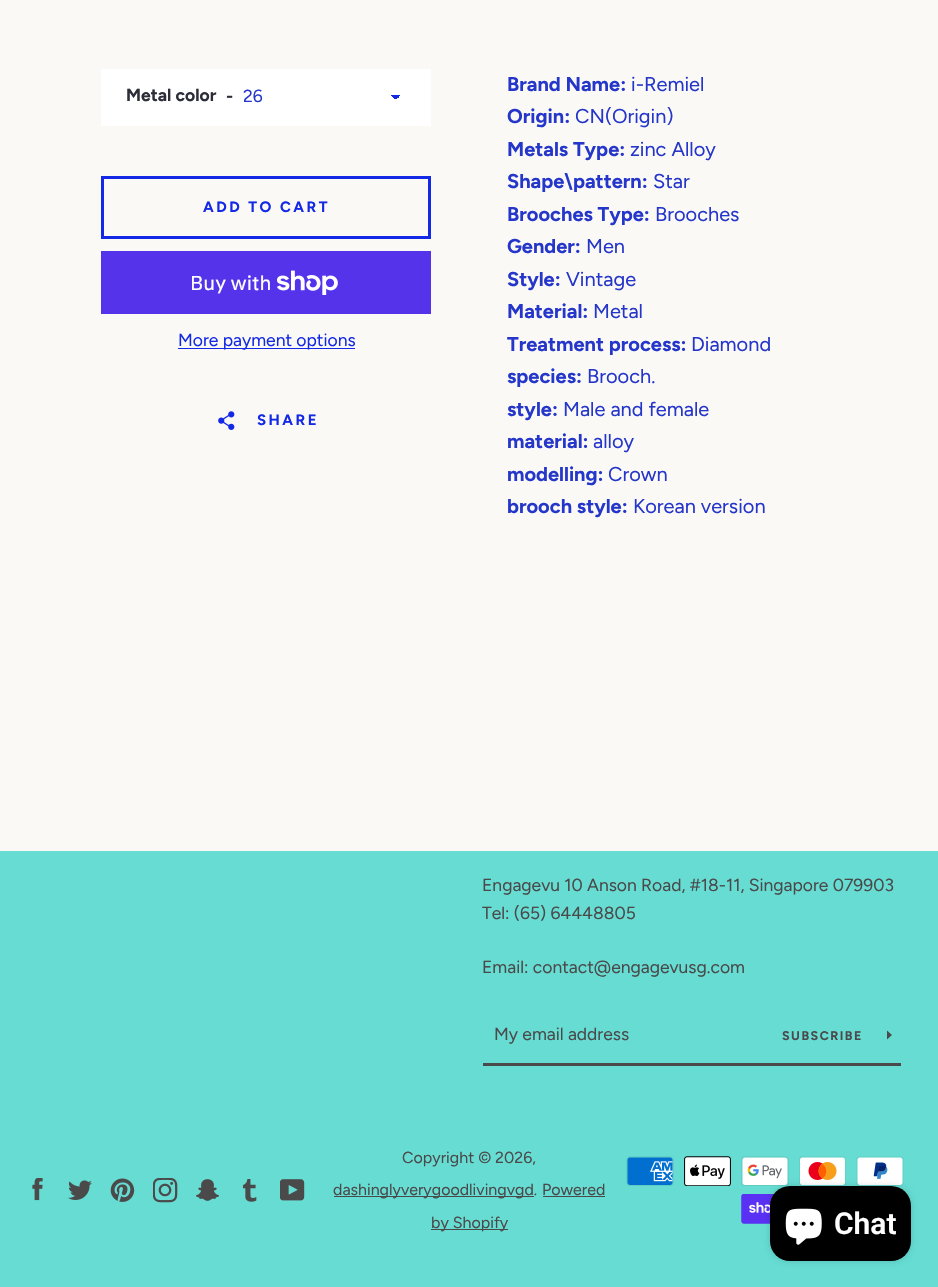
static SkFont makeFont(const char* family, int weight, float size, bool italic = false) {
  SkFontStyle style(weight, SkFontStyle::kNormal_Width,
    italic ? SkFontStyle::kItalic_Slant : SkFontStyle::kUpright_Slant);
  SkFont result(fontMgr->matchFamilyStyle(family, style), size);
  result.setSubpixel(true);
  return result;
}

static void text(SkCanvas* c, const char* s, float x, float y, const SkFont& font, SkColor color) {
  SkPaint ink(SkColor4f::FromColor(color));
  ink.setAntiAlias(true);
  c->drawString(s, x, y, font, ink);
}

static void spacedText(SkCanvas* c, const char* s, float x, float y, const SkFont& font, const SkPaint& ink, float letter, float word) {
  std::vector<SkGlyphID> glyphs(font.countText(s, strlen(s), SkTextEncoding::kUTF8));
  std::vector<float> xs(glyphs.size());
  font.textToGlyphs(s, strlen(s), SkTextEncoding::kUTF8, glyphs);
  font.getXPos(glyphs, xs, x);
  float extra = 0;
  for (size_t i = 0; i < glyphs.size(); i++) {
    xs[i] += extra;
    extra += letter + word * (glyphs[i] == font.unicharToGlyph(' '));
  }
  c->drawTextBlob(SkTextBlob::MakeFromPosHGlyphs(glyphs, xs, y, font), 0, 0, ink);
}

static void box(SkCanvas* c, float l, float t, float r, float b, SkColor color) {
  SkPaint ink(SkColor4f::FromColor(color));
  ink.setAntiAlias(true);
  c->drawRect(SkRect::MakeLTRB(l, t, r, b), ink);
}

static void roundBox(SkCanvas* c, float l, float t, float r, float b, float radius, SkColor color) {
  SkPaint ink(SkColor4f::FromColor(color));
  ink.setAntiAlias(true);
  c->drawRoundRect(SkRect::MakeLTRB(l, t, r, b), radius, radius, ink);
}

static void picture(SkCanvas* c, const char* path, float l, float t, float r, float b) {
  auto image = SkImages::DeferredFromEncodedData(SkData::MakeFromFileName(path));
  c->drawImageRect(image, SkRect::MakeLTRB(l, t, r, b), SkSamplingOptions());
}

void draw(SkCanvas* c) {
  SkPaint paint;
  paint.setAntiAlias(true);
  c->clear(0xff66dcd3);
  box(c, 0, 0, 938, 851, 0xfffaf9f6);
  box(c, 101, 69, 431, 126, 0xffffffff);
  SkFont face1 = makeFont("Figtree", 700, 17.5f);
  text(c, "Metal color", 126, 101, face1, 0xff2c2d38);
  text(c, "-", 226, 102, face1, 0xff2c2d38);
  {
    const SkColor colors[] = {0xff1329e6, 0xffffffff};
    const float stops[] = {0.5f, 0.5f};
    const SkPoint ends[] = {{396, 95}, {401, 100}};
    paint.setShader(SkGradientShader::MakeLinear(ends, colors, stops, 2, SkTileMode::kClamp));
    paint.setAlpha(255);
  }
  c->drawRect(SkRect::MakeLTRB(396, 95, 401, 99), paint);
  {
    const SkColor colors[] = {0xffffffff, 0xff1329e6};
    const float stops[] = {0.5f, 0.5f};
    const SkPoint ends[] = {{391, 100}, {396, 95}};
    paint.setShader(SkGradientShader::MakeLinear(ends, colors, stops, 2, SkTileMode::kClamp));
    paint.setAlpha(255);
  }
  c->drawRect(SkRect::MakeLTRB(391, 95, 396, 99), paint);
  SkFont face2 = makeFont("Figtree", 400, 17.5f);
  text(c, "26", 243, 102, face2, 0xff2536ca);
  paint.setStyle(SkPaint::kStroke_Style);
  paint.setStrokeWidth(3);
  paint.setShader(nullptr);
  paint.setColor(0xff1329e6);
  c->drawRect(SkRect::MakeLTRB(102.5f, 177.5f, 429.5f, 237.5f), paint);
  SkFont face3 = makeFont("Figtree", 700, 15);
  paint.setStyle(SkPaint::kFill_Style);
  spacedText(c, "ADD TO CART", 203, 212, face3, paint, 2.5f, 0);
  box(c, 101, 251, 431, 314, 0xff5433eb);
  SkFont face4 = makeFont("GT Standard", 400, 20);
  text(c, "Buy with", 190, 290, face4, 0xffffffff);
  picture(c, "img_01.png", 276, 270, 338, 295);
  box(c, 178, 348, 355, 349, 0xff1329e6);
  text(c, "More payment options", 178, 346, face2, 0xff1329e6);
  picture(c, "img_02.png", 218, 411, 235, 430);
  spacedText(c, "SHARE", 257, 425, face3, paint, 2.5f, 0);
  SkFont face5 = makeFont("Figtree", 700, 20);
  text(c, "Brand Name:", 507, 91, face5, 0xff2536ca);
  SkFont face6 = makeFont("Figtree", 400, 20);
  text(c, "i-Remiel", 631, 91, face6, 0xff2536ca);
  text(c, "Origin:", 507, 123, face5, 0xff2536ca);
  text(c, "CN(Origin)", 575, 123, face6, 0xff2536ca);
  text(c, "Metals Type:", 507, 156, face5, 0xff2536ca);
  text(c, "zinc Alloy", 630, 156, face6, 0xff2536ca);
  text(c, "Shape\\pattern:", 507, 188, face5, 0xff2536ca);
  text(c, "Star", 653, 188, face6, 0xff2536ca);
  text(c, "Brooches Type:", 507, 221, face5, 0xff2536ca);
  text(c, "Brooches", 655, 221, face6, 0xff2536ca);
  text(c, "Gender:", 507, 253, face5, 0xff2536ca);
  text(c, "Men", 586, 253, face6, 0xff2536ca);
  text(c, "Style:", 507, 286, face5, 0xff2536ca);
  text(c, "Vintage", 566, 286, face6, 0xff2536ca);
  text(c, "Material:", 507, 318, face5, 0xff2536ca);
  text(c, "Metal", 593, 318, face6, 0xff2536ca);
  text(c, "Treatment process:", 507, 351, face5, 0xff2536ca);
  text(c, "Diamond", 691, 351, face6, 0xff2536ca);
  text(c, "species:", 507, 383, face5, 0xff2536ca);
  text(c, "Brooch.", 587, 383, face6, 0xff2536ca);
  text(c, "style:", 507, 416, face5, 0xff2536ca);
  text(c, "Male and female", 563, 416, face6, 0xff2536ca);
  text(c, "material:", 507, 448, face5, 0xff2536ca);
  text(c, "alloy", 593, 448, face6, 0xff2536ca);
  text(c, "modelling:", 507, 481, face5, 0xff2536ca);
  text(c, "Crown", 608, 481, face6, 0xff2536ca);
  text(c, "brooch style:", 507, 513, face5, 0xff2536ca);
  text(c, "Korean version", 633, 513, face6, 0xff2536ca);
  text(c, "Engagevu 10 Anson Road, #18-11, Singapore 079903", 482, 891, face2, 0xff4a4a4a);
  text(c, "Tel: (65) 64448805", 482, 919, face2, 0xff4a4a4a);
  text(c, "Email: contact@engagevusg.com", 482, 973, face2, 0xff4a4a4a);
  box(c, 483, 1063, 901, 1066, 0xff4a4a4a);
  text(c, "My email address", 494, 1040, face2, 0xff4a4a4a);
  SkFont face7 = makeFont("Figtree", 700, 12.5f);
  paint.setColor(0xff4a4a4a);
  spacedText(c, "SUBSCRIBE", 782, 1040, face7, paint, 1.5f, 0);
  c->drawPath(SkPathBuilder().moveTo(892, 1035).lineTo(887, 1039.5f).lineTo(887, 1030.5f).close().detach(), paint);
  picture(c, "img_03.png", 32, 1178, 43, 1201);
  picture(c, "img_04.png", 68, 1180, 92, 1200);
  picture(c, "img_05.png", 110, 1178, 135, 1202);
  picture(c, "img_06.png", 153, 1178, 178, 1203);
  picture(c, "img_07.png", 196, 1179, 219, 1201);
  picture(c, "img_08.png", 242, 1179, 257, 1202);
  picture(c, "img_09.png", 280, 1179, 305, 1201);
  SkFont face8 = makeFont("Figtree", 400, 16);
  text(c, "Copyright © 2026,", 402, 1163, face8, 0xff4a4a4a);
  box(c, 334, 1196, 534, 1197, 0xff4a4a4a);
  text(c, "dashinglyverygoodlivingvgd.", 333, 1195, face8, 0xff4a4a4a);
  text(c, "Powered", 542, 1195, face8, 0xff4a4a4a);
  box(c, 543, 1196, 605, 1197, 0xff4a4a4a);
  box(c, 431, 1229, 508, 1230, 0xff4a4a4a);
  text(c, "by Shopify", 431, 1228, face8, 0xff4a4a4a);
  picture(c, "img_10.png", 626, 1156, 674, 1186);
  picture(c, "img_11.png", 684, 1156, 731, 1186);
  picture(c, "img_12.png", 741, 1156, 789, 1186);
  picture(c, "img_13.png", 799, 1156, 846, 1186);
  picture(c, "img_14.png", 856, 1156, 904, 1186);
  picture(c, "img_15.png", 741, 1194, 774, 1224);
  paint.setColor(0x26000000);
  paint.setMaskFilter(SkMaskFilter::MakeBlur(kNormal_SkBlurStyle, 3));
  c->drawRoundRect(SkRect::MakeLTRB(770, 1186, 911, 1261), 20, 20, paint);
  paint.setMaskFilter(nullptr);
  roundBox(c, 770, 1186, 911, 1261, 20, 0xff000000);
  picture(c, "img_16.png", 785, 1208, 822, 1245);
  SkFont face9 = makeFont("Roboto", 600, 30);
  text(c, "Chat", 834, 1234, face9, 0xffffffff);
}
